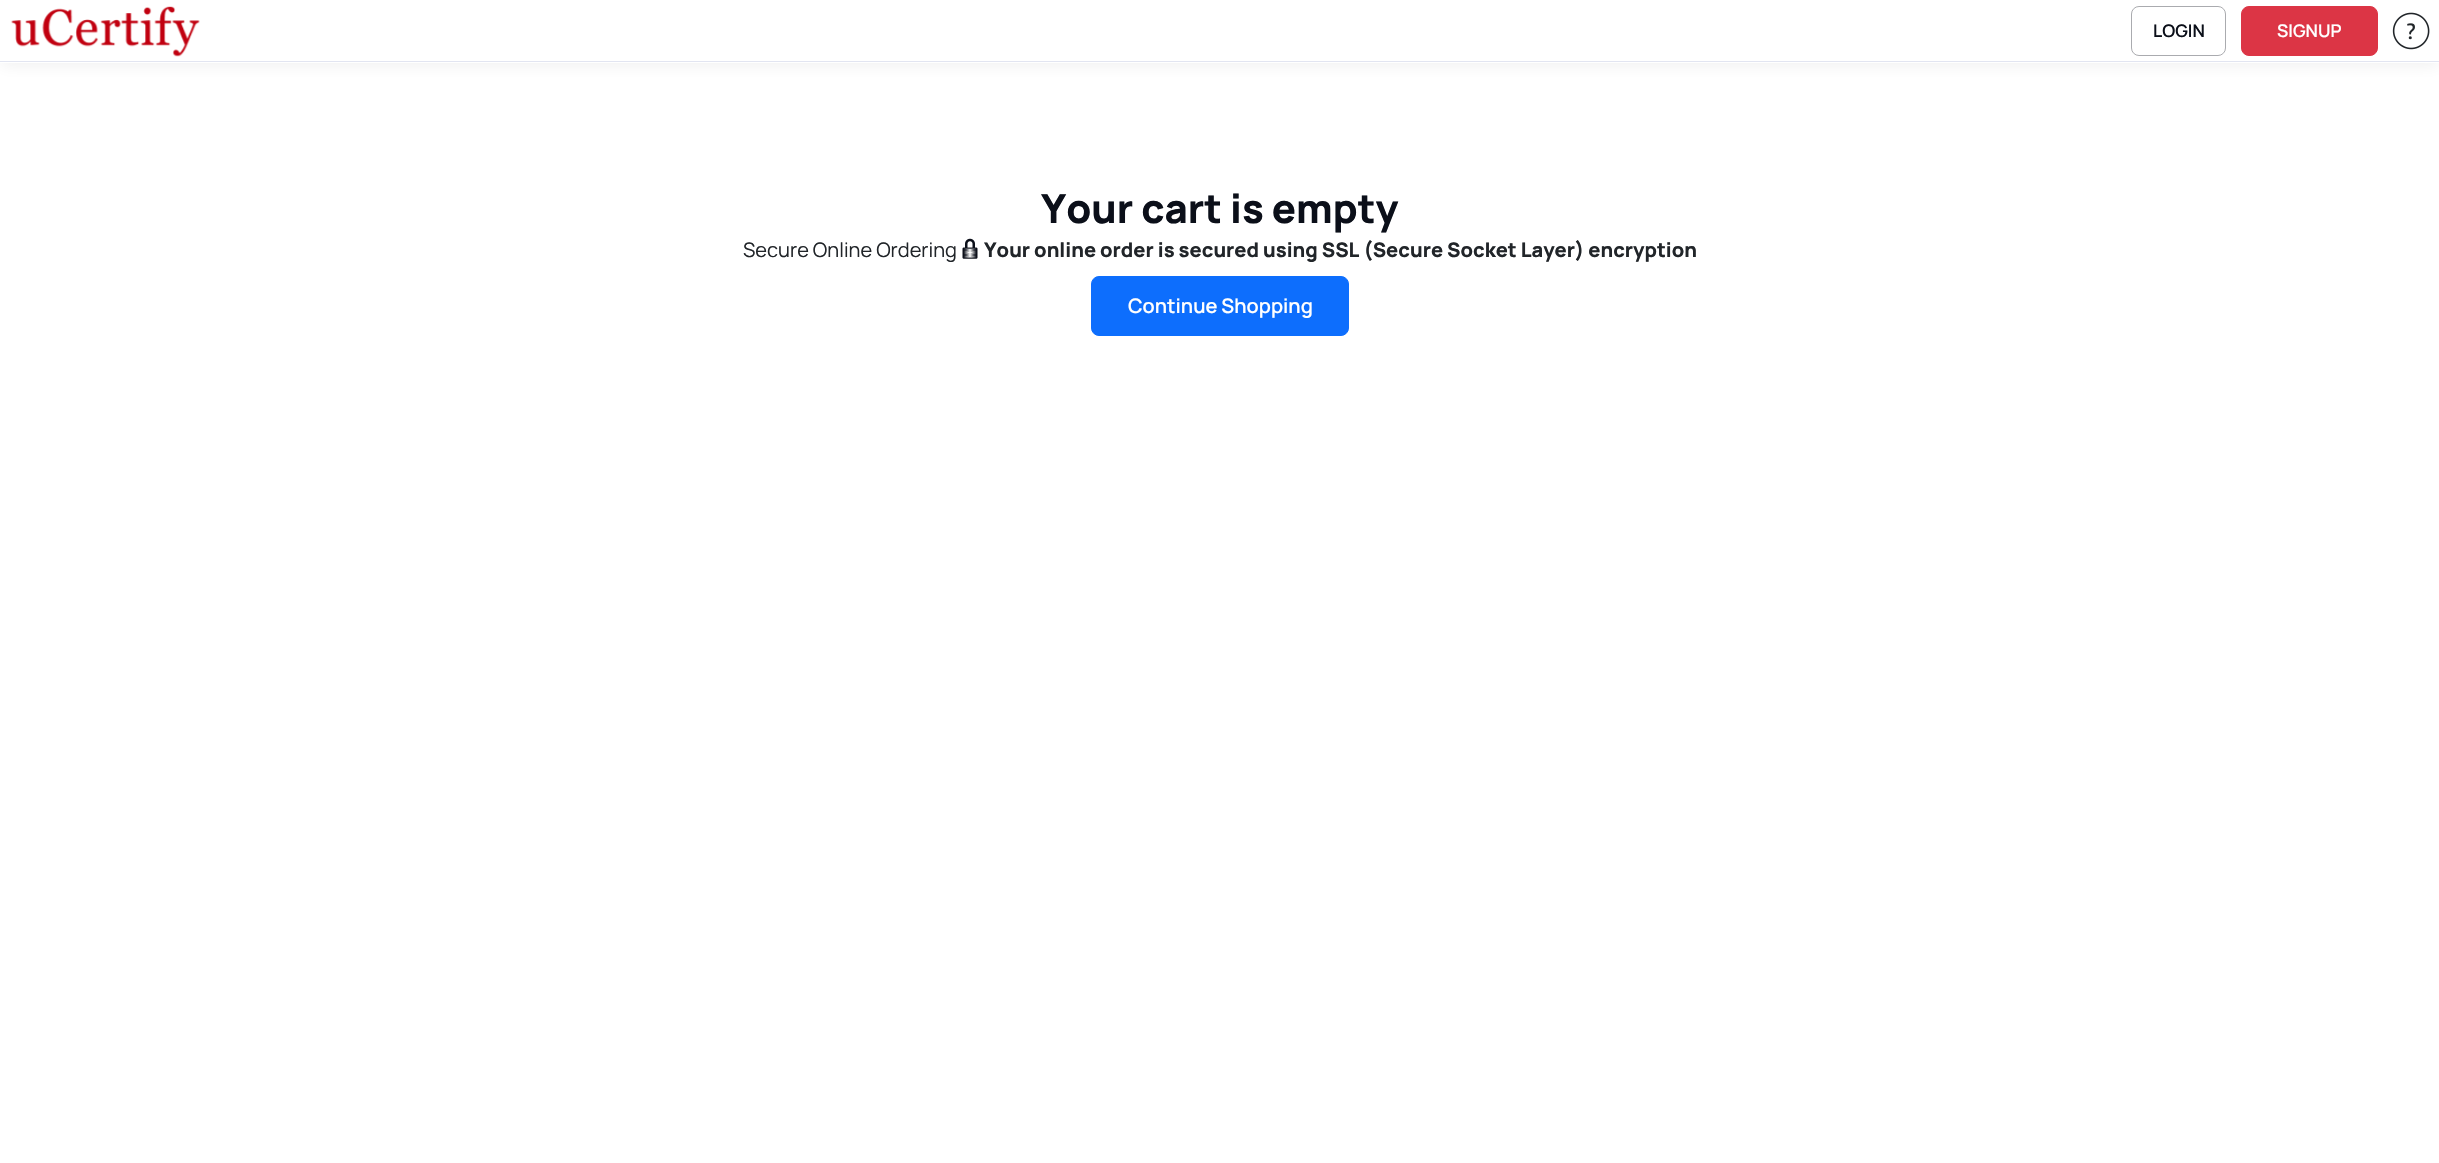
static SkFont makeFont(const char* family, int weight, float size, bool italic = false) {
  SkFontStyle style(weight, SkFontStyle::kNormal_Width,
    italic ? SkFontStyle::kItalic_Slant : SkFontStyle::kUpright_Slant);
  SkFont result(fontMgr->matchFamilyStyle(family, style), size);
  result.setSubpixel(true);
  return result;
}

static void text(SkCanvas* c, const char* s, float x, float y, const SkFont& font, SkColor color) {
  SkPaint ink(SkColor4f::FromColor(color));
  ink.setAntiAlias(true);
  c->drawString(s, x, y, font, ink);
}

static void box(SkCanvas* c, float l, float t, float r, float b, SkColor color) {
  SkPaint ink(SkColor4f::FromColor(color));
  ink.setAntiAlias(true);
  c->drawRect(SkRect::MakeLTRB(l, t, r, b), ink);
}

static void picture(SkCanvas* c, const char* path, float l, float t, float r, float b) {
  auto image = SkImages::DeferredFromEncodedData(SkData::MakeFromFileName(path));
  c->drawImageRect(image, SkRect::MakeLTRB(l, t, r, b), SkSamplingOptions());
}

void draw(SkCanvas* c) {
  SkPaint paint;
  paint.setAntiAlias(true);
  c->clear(0xffffffff);
  paint.setColor(0x0f0b0f19);
  paint.setMaskFilter(SkMaskFilter::MakeBlur(kNormal_SkBlurStyle, 7.5f));
  c->drawRect(SkRect::MakeLTRB(1, 6, 2439, 66), paint);
  paint.setMaskFilter(nullptr);
  box(c, 0, 0, 2439, 63, 0xffffffff);
  box(c, 0, 61, 2439, 62, 0xffe2e5f1);
  picture(c, "img_01.png", 11, 6, 200, 57);
  paint.setStyle(SkPaint::kStroke_Style);
  paint.setStrokeWidth(1);
  paint.setColor(0xffaaabaf);
  c->drawRoundRect(SkRect::MakeLTRB(2131.5f, 6.5f, 2225.5f, 55.5f), 7.5f, 7.5f, paint);
  SkFont face1 = makeFont("Manrope", 600, 17.5f);
  text(c, "LOGIN", 2153, 37, face1, 0xff0b0f19);
  paint.setStyle(SkPaint::kFill_Style);
  paint.setColor(0xffdc3545);
  c->drawRoundRect(SkRect::MakeLTRB(2241.5f, 6.5f, 2377.5f, 55.5f), 7.5f, 7.5f, paint);
  paint.setStyle(SkPaint::kStroke_Style);
  c->drawRoundRect(SkRect::MakeLTRB(2241.5f, 6.5f, 2377.5f, 55.5f), 7.5f, 7.5f, paint);
  text(c, "SIGNUP", 2277, 37, face1, 0xffffffff);
  picture(c, "img_02.png", 2392, 12, 2430, 50);
  SkFont face2 = makeFont("Manrope", 800, 40);
  text(c, "Your cart is empty", 1041, 223, face2, 0xff0b0f19);
  SkFont face3 = makeFont("Manrope", 400, 20);
  text(c, "Secure Online Ordering", 743, 257, face3, 0xff212529);
  picture(c, "img_03.png", 962, 238, 978, 259);
  SkFont face4 = makeFont("Manrope", 800, 20);
  text(c, "Your online order is secured using SSL (Secure Socket Layer) encryption", 984, 257, face4, 0xff212529);
  paint.setStyle(SkPaint::kFill_Style);
  paint.setColor(0xff0d6efd);
  c->drawRoundRect(SkRect::MakeLTRB(1091.5f, 276.5f, 1348.5f, 335.5f), 7.5f, 7.5f, paint);
  paint.setStyle(SkPaint::kStroke_Style);
  c->drawRoundRect(SkRect::MakeLTRB(1091.5f, 276.5f, 1348.5f, 335.5f), 7.5f, 7.5f, paint);
  SkFont face5 = makeFont("Manrope", 600, 20);
  text(c, "Continue Shopping", 1128, 313, face5, 0xffffffff);
}
